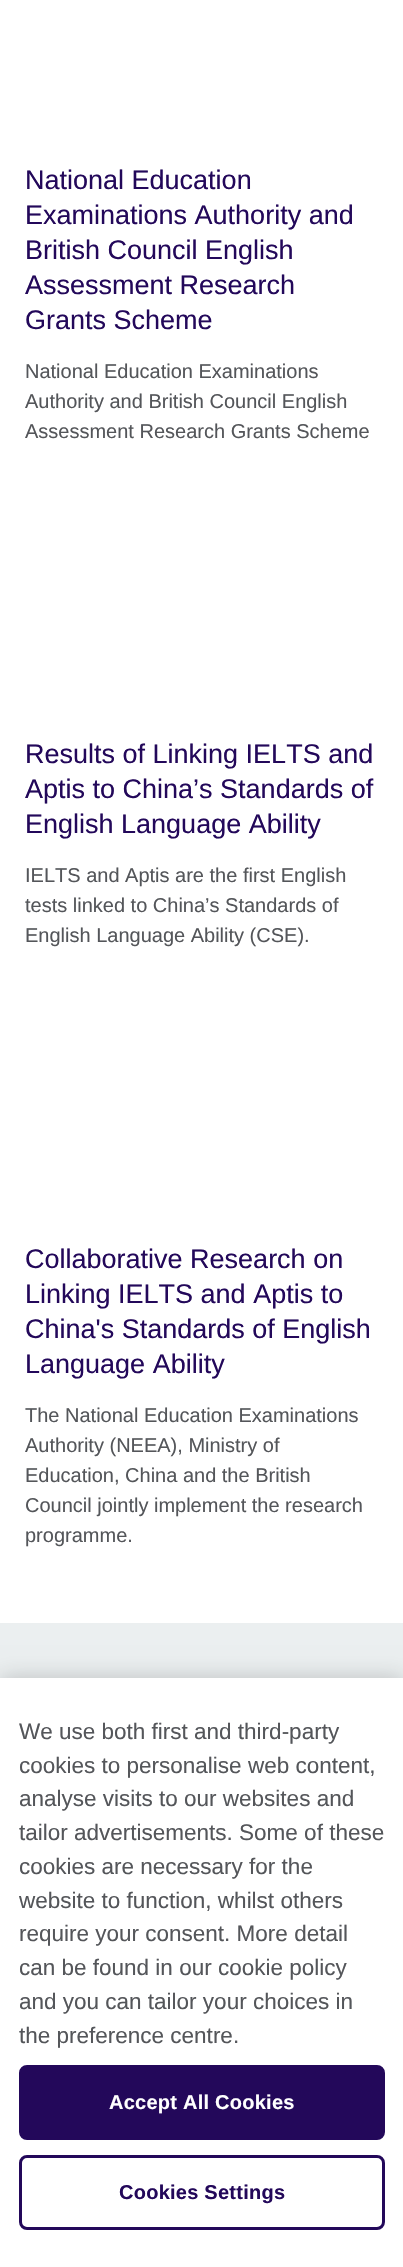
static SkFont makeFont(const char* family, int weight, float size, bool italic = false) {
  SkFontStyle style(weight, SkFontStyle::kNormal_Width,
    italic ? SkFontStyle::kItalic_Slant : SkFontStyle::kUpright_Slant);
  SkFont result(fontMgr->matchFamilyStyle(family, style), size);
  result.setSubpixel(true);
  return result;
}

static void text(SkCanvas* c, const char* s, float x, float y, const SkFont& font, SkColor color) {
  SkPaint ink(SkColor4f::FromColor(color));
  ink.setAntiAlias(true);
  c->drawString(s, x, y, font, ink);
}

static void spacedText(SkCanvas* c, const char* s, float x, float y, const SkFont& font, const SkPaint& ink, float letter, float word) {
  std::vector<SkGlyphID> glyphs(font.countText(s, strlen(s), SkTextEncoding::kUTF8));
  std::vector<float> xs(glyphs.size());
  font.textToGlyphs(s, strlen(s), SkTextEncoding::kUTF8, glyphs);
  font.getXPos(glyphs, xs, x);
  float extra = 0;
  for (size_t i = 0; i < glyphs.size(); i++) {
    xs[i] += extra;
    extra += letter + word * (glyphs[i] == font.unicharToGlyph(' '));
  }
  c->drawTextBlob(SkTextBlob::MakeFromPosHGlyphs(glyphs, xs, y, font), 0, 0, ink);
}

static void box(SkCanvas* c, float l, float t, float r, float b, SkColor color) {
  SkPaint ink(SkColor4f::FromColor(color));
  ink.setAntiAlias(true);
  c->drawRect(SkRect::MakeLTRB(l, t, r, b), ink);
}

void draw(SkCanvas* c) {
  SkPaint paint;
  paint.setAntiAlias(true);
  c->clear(0xffffffff);
  SkFont face1 = makeFont("Liberation Sans", 400, 27);
  text(c, "National Education", 25, 189, face1, 0xff23085a);
  text(c, "Examinations Authority and", 25, 224, face1, 0xff23085a);
  text(c, "British Council English", 25, 259, face1, 0xff23085a);
  text(c, "Assessment Research", 25, 294, face1, 0xff23085a);
  text(c, "Grants Scheme", 25, 329, face1, 0xff23085a);
  SkFont face2 = makeFont("Liberation Sans", 400, 20);
  text(c, "National Education Examinations", 25, 378, face2, 0xff54565a);
  text(c, "Authority and British Council English", 25, 408, face2, 0xff54565a);
  text(c, "Assessment Research Grants Scheme", 25, 438, face2, 0xff54565a);
  text(c, "Results of Linking IELTS and", 25, 763, face1, 0xff23085a);
  text(c, "Aptis to China’s Standards of", 25, 798, face1, 0xff23085a);
  text(c, "English Language Ability", 25, 833, face1, 0xff23085a);
  text(c, "IELTS and Aptis are the first English", 25, 882, face2, 0xff54565a);
  text(c, "tests linked to China’s Standards of", 25, 912, face2, 0xff54565a);
  text(c, "English Language Ability (CSE).", 25, 942, face2, 0xff54565a);
  text(c, "Collaborative Research on", 25, 1268, face1, 0xff23085a);
  text(c, "Linking IELTS and Aptis to", 25, 1303, face1, 0xff23085a);
  text(c, "China's Standards of English", 25, 1338, face1, 0xff23085a);
  text(c, "Language Ability", 25, 1373, face1, 0xff23085a);
  text(c, "The National Education Examinations", 25, 1422, face2, 0xff54565a);
  text(c, "Authority (NEEA), Ministry of", 25, 1452, face2, 0xff54565a);
  text(c, "Education, China and the British", 25, 1482, face2, 0xff54565a);
  text(c, "Council jointly implement the research", 25, 1512, face2, 0xff54565a);
  text(c, "programme.", 25, 1542, face2, 0xff54565a);
  box(c, 0, 1623, 403, 1678, 0xffebeff0);
  paint.setColor(0x33000000);
  paint.setMaskFilter(SkMaskFilter::MakeBlur(kNormal_SkBlurStyle, 11));
  c->drawRect(SkRect::MakeLTRB(0, 1678, 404, 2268), paint);
  paint.setMaskFilter(nullptr);
  box(c, 0, 1678, 403, 2267, 0xffffffff);
  SkFont face3 = makeFont("Liberation Sans", 400, 22.5f);
  text(c, "We use both first and third-party", 19, 1739, face3, 0xff54565a);
  text(c, "cookies to personalise web content,", 19, 1773, face3, 0xff54565a);
  text(c, "analyse visits to our websites and", 19, 1806, face3, 0xff54565a);
  text(c, "tailor advertisements. Some of these", 19, 1840, face3, 0xff54565a);
  text(c, "cookies are necessary for the", 19, 1874, face3, 0xff54565a);
  text(c, "website to function, whilst others", 19, 1908, face3, 0xff54565a);
  text(c, "require your consent. More detail", 19, 1941, face3, 0xff54565a);
  text(c, "can be found in our cookie policy", 19, 1975, face3, 0xff54565a);
  text(c, "and you can tailor your choices in", 19, 2009, face3, 0xff54565a);
  text(c, "the preference centre.", 19, 2043, face3, 0xff54565a);
  paint.setColor(0xff23085a);
  c->drawRoundRect(SkRect::MakeLTRB(20.5f, 2066.5f, 383.5f, 2138.5f), 6.5f, 6.5f, paint);
  paint.setStyle(SkPaint::kStroke_Style);
  paint.setStrokeWidth(3);
  c->drawRoundRect(SkRect::MakeLTRB(20.5f, 2066.5f, 383.5f, 2138.5f), 6.5f, 6.5f, paint);
  SkFont face4 = makeFont("Liberation Sans", 700, 20);
  paint.setStyle(SkPaint::kFill_Style);
  paint.setColor(0xffffffff);
  spacedText(c, "Accept All Cookies", 109, 2109, face4, paint, 0.25f, 0);
  paint.setStyle(SkPaint::kStroke_Style);
  paint.setColor(0xff23085a);
  c->drawRoundRect(SkRect::MakeLTRB(20.5f, 2156.5f, 383.5f, 2228.5f), 6.5f, 6.5f, paint);
  paint.setStyle(SkPaint::kFill_Style);
  spacedText(c, "Cookies Settings", 119, 2199, face4, paint, 0.25f, 0);
}
